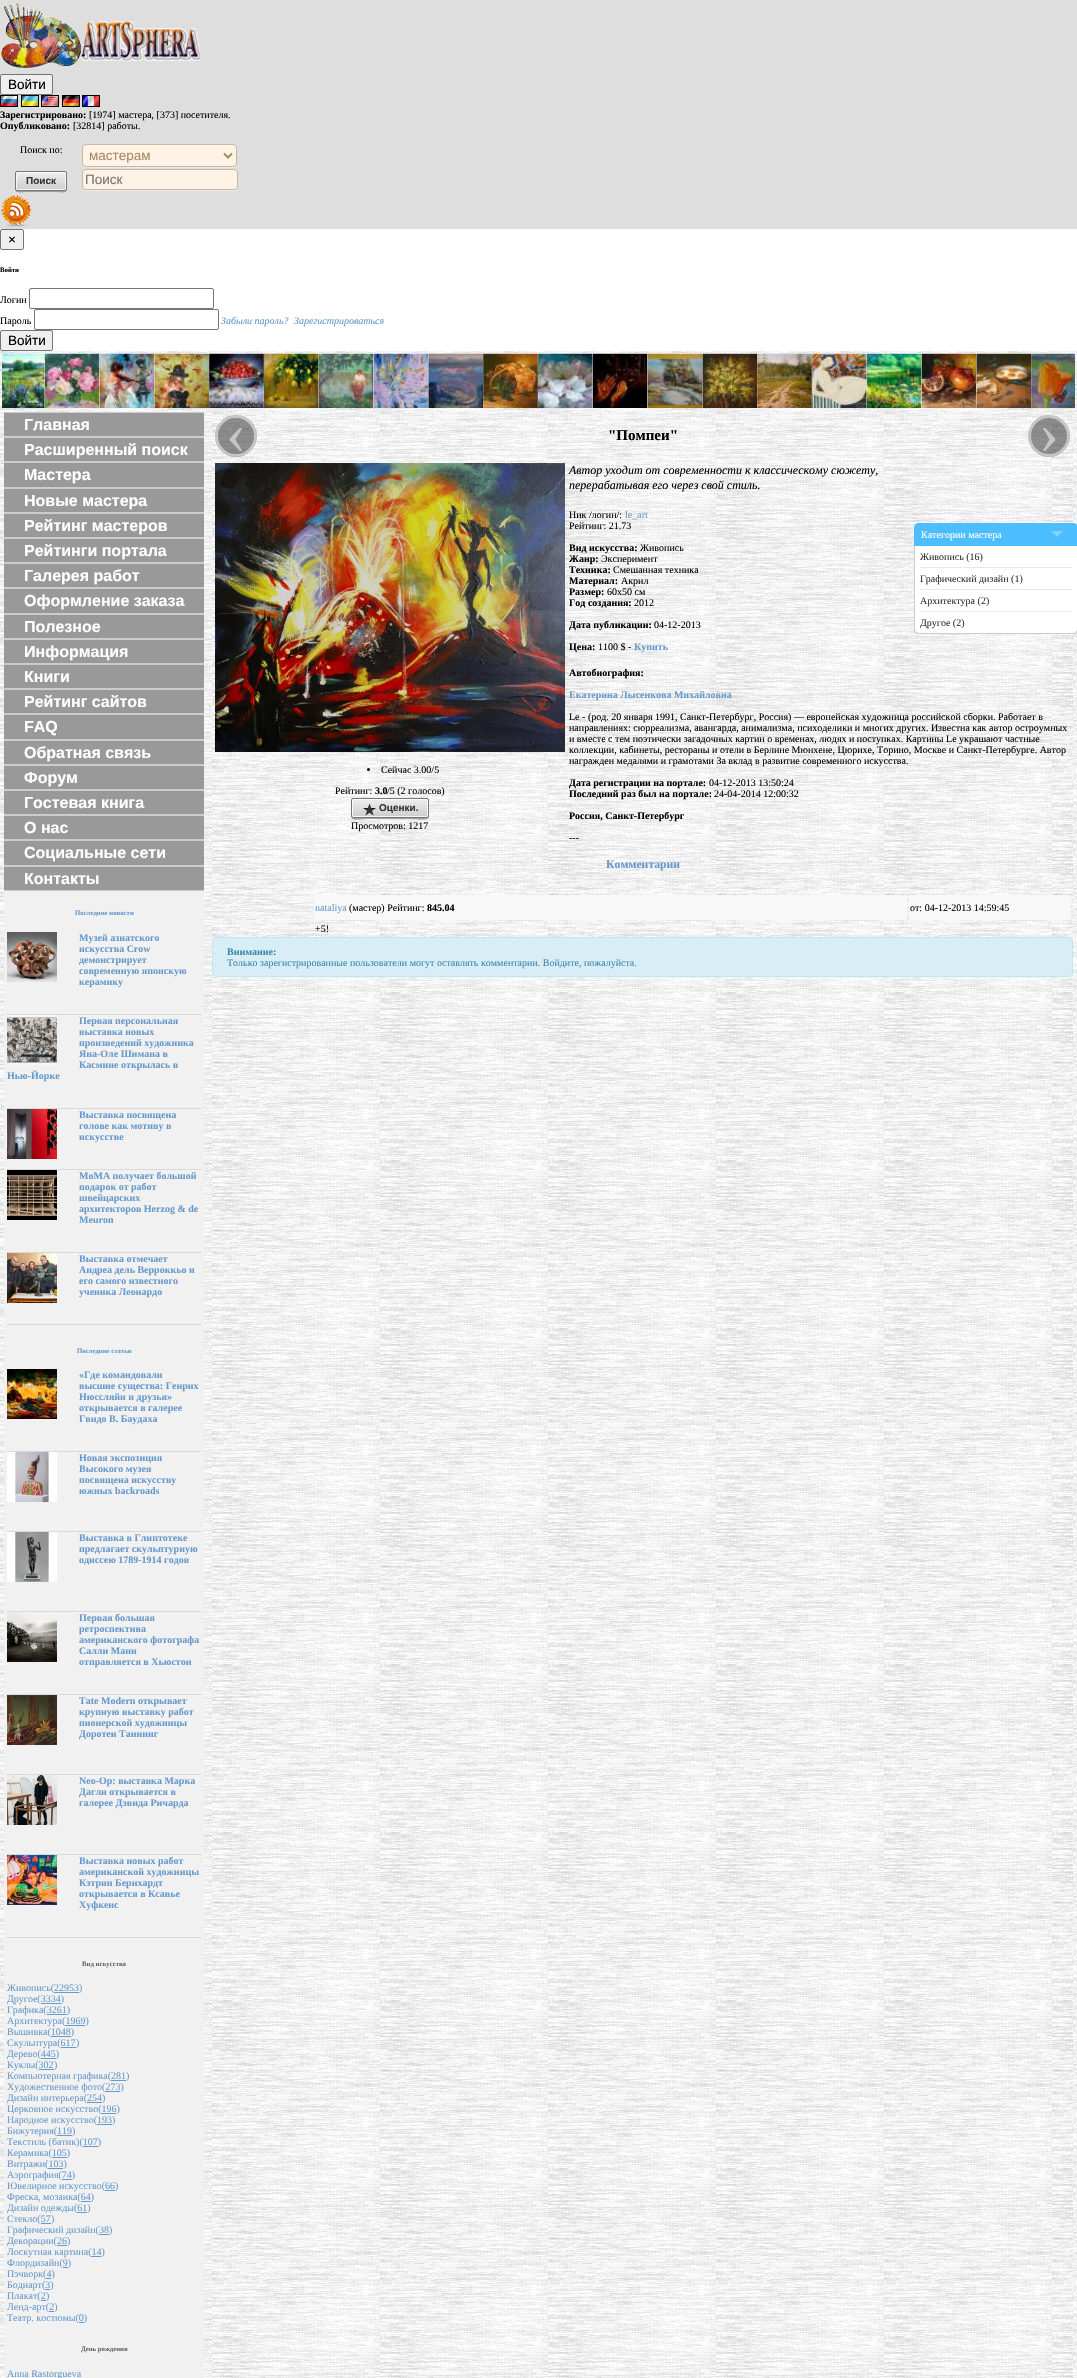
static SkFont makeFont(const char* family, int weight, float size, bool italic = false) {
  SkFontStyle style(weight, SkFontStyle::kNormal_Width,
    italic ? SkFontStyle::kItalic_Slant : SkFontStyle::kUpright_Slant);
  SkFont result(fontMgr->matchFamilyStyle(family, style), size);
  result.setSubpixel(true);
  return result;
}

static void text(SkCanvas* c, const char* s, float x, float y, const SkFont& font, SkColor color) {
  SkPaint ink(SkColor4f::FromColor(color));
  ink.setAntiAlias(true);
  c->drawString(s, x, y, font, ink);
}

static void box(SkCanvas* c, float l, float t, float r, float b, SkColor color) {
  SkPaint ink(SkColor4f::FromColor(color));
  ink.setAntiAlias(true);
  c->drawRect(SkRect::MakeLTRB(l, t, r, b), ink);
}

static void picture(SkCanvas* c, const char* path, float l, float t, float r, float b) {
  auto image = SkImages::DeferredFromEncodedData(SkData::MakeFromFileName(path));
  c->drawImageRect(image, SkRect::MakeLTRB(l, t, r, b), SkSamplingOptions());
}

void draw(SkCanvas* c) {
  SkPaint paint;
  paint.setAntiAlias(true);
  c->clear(0xffffffff);
  box(c, 0, 0, 1077, 229, 0xffdedede);
  picture(c, "img_01.png", 1, 3, 200, 69);
  paint.setColor(0xffefefef);
  c->drawRoundRect(SkRect::MakeLTRB(0.5f, 74.5f, 52.5f, 94.5f), 1.5f, 1.5f, paint);
  paint.setStyle(SkPaint::kStroke_Style);
  paint.setStrokeWidth(1);
  paint.setColor(0xff767676);
  c->drawRoundRect(SkRect::MakeLTRB(0.5f, 74.5f, 52.5f, 94.5f), 1.5f, 1.5f, paint);
  SkFont face1 = makeFont("Liberation Sans", 400, 13.5f);
  text(c, "Войти", 8, 89, face1, 0xff000000);
  picture(c, "img_02.png", 0, 95, 18, 107);
  picture(c, "img_03.png", 21, 95, 39, 107);
  picture(c, "img_04.png", 41, 95, 59, 107);
  picture(c, "img_05.png", 62, 95, 80, 107);
  picture(c, "img_06.png", 82, 95, 100, 107);
  SkFont face2 = makeFont("Liberation Serif", 700, 10);
  text(c, "Зарегистрировано:", 0, 118, face2, 0xff000000);
  SkFont face3 = makeFont("Liberation Serif", 400, 10);
  text(c, "[1974] мастера, [373] посетителя.", 89, 118, face3, 0xff000000);
  text(c, "Опубликовано:", 0, 129, face2, 0xff000000);
  text(c, "[32814] работы.", 73, 129, face3, 0xff000000);
  text(c, "Поиск по:", 20, 153, face3, 0xff000000);
  paint.setStyle(SkPaint::kFill_Style);
  paint.setColor(0xffebebeb);
  c->drawPath(SkPathBuilder().moveTo(82, 163).cubicTo(82, 165, 83, 167, 85, 168).lineTo(234, 168).cubicTo(236, 167, 237, 165, 237, 163).lineTo(236, 166).lineTo(233, 167).lineTo(86, 167).cubicTo(84, 167, 82, 165, 82, 163).close().detach(), paint);
  paint.setColor(0xfffff3e5);
  c->drawRoundRect(SkRect::MakeLTRB(82.5f, 144.5f, 236.5f, 166.5f), 3.5f, 3.5f, paint);
  paint.setStyle(SkPaint::kStroke_Style);
  paint.setColor(0xffc9b7a2);
  c->drawRoundRect(SkRect::MakeLTRB(82.5f, 144.5f, 236.5f, 166.5f), 3.5f, 3.5f, paint);
  paint.setStrokeWidth(2);
  paint.setColor(0xffa88a65);
  c->drawPath(SkPathBuilder().moveTo(224, 153.5f).lineTo(228, 157.5f).lineTo(232, 153.5f).detach(), paint);
  text(c, "мастерам", 89, 160, face1, 0xffa88a65);
  paint.setStyle(SkPaint::kFill_Style);
  paint.setColor(0xff9b9b9b);
  c->drawPath(SkPathBuilder().moveTo(15, 189).cubicTo(15, 194, 21, 192, 25, 192).lineTo(57, 192).cubicTo(61, 192, 67, 194, 67, 189).cubicTo(67, 190, 66, 191, 65, 191).lineTo(17, 191).cubicTo(16, 191, 15, 190, 15, 189).close().detach(), paint);
  c->save();
  c->clipPath(SkPathBuilder().moveTo(17, 171).lineTo(65, 171).cubicTo(66, 171, 67, 172, 67, 173).lineTo(67, 189).cubicTo(67, 190, 66, 191, 65, 191).lineTo(17, 191).cubicTo(16, 191, 15, 190, 15, 189).lineTo(15, 173).cubicTo(15, 172, 16, 171, 17, 171).close().detach(), true);
  {
    const SkColor colors[] = {0xffeeeeee, 0xffcccccc};
    const float stops[] = {0, 1};
    const SkPoint ends[] = {{41, 172}, {41, 190}};
    paint.setShader(SkGradientShader::MakeLinear(ends, colors, stops, 2, SkTileMode::kClamp));
    paint.setAlpha(255);
  }
  c->drawRect(SkRect::MakeLTRB(15, 172, 67, 190), paint);
  c->restore();
  paint.setStyle(SkPaint::kStroke_Style);
  paint.setStrokeWidth(1);
  paint.setShader(nullptr);
  paint.setColor(0xccffffff);
  c->drawRoundRect(SkRect::MakeLTRB(16.5f, 172.5f, 65.5f, 189.5f), 0.5f, 0.5f, paint);
  paint.setColor(0xff777777);
  c->drawRoundRect(SkRect::MakeLTRB(15.5f, 171.5f, 66.5f, 190.5f), 1.5f, 1.5f, paint);
  SkFont face4 = makeFont("Liberation Sans", 700, 10);
  text(c, "Поиск", 26, 184, face4, 0xff333333);
  paint.setStyle(SkPaint::kFill_Style);
  paint.setColor(0xffebebeb);
  c->drawPath(SkPathBuilder().moveTo(82, 186).cubicTo(82, 188, 83, 190, 85, 191).lineTo(235, 191).cubicTo(237, 190, 238, 188, 238, 186).lineTo(237, 189).lineTo(234, 190).lineTo(86, 190).cubicTo(84, 190, 82, 188, 82, 186).close().detach(), paint);
  paint.setColor(0xfffff3e5);
  c->drawRoundRect(SkRect::MakeLTRB(82.5f, 169.5f, 237.5f, 189.5f), 3.5f, 3.5f, paint);
  paint.setStyle(SkPaint::kStroke_Style);
  paint.setColor(0xffc9b7a2);
  c->drawRoundRect(SkRect::MakeLTRB(82.5f, 169.5f, 237.5f, 189.5f), 3.5f, 3.5f, paint);
  text(c, "Поиск", 85, 184, face1, 0xff757575);
  picture(c, "img_07.png", 0, 195, 32, 227);
  paint.setStyle(SkPaint::kFill_Style);
  paint.setColor(0xffefefef);
  c->drawRoundRect(SkRect::MakeLTRB(0.5f, 229.5f, 23.5f, 249.5f), 1.5f, 1.5f, paint);
  paint.setStyle(SkPaint::kStroke_Style);
  paint.setColor(0xff767676);
  c->drawRoundRect(SkRect::MakeLTRB(0.5f, 229.5f, 23.5f, 249.5f), 1.5f, 1.5f, paint);
  text(c, "×", 8, 244, face1, 0xff000000);
  SkFont face5 = makeFont("Liberation Serif", 700, 6.75f);
  text(c, "Войти", 0, 272, face5, 0xff000000);
  text(c, "Логин", 0, 303, face3, 0xff000000);
  c->drawRoundRect(SkRect::MakeLTRB(29.5f, 288.5f, 213.5f, 308.5f), 1.5f, 1.5f, paint);
  text(c, "Пароль", 0, 324, face3, 0xff000000);
  c->drawRoundRect(SkRect::MakeLTRB(34.5f, 309.5f, 218.5f, 329.5f), 1.5f, 1.5f, paint);
  SkFont face6 = makeFont("Liberation Serif", 400, 10, true);
  text(c, "Забыли пароль?", 221, 324, face6, 0xff6699cc);
  text(c, "Зарегистрироваться", 294, 324, face6, 0xff6699cc);
  paint.setStyle(SkPaint::kFill_Style);
  paint.setColor(0xffefefef);
  c->drawRoundRect(SkRect::MakeLTRB(0.5f, 330.5f, 52.5f, 350.5f), 1.5f, 1.5f, paint);
  paint.setStyle(SkPaint::kStroke_Style);
  paint.setColor(0xff767676);
  c->drawRoundRect(SkRect::MakeLTRB(0.5f, 330.5f, 52.5f, 350.5f), 1.5f, 1.5f, paint);
  text(c, "Войти", 8, 345, face1, 0xff000000);
  picture(c, "img_08.png", 0, 351, 1077, 2378);
  picture(c, "img_09.png", 2, 353, 45, 408);
  picture(c, "img_10.png", 44, 353, 100, 408);
  picture(c, "img_11.png", 99, 353, 155, 408);
  picture(c, "img_12.png", 154, 353, 209, 408);
  picture(c, "img_13.png", 209, 353, 264, 408);
  picture(c, "img_14.png", 264, 353, 319, 408);
  picture(c, "img_15.png", 318, 353, 374, 408);
  picture(c, "img_16.png", 373, 353, 429, 408);
  picture(c, "img_17.png", 428, 353, 483, 408);
  picture(c, "img_18.png", 483, 353, 538, 408);
  picture(c, "img_19.png", 538, 353, 593, 408);
  picture(c, "img_20.png", 592, 353, 648, 408);
  picture(c, "img_21.png", 647, 353, 703, 408);
  picture(c, "img_22.png", 702, 353, 757, 408);
  picture(c, "img_23.png", 757, 353, 812, 408);
  picture(c, "img_24.png", 812, 353, 867, 408);
  picture(c, "img_25.png", 866, 353, 922, 408);
  picture(c, "img_26.png", 921, 353, 977, 408);
  picture(c, "img_27.png", 976, 353, 1031, 408);
  picture(c, "img_28.png", 1031, 353, 1075, 408);
  box(c, 4, 412, 204, 413, 0xffcccccc);
  box(c, 4, 436, 204, 438, 0xffcccccc);
  box(c, 4, 413, 204, 436, 0xff999999);
  SkFont face7 = makeFont("Liberation Sans", 700, 16);
  text(c, "Главная", 24, 430, face7, 0xffffffff);
  box(c, 4, 461, 204, 463, 0xffcccccc);
  box(c, 4, 438, 204, 461, 0xff999999);
  text(c, "Расширенный поиск", 24, 455, face7, 0xffffffff);
  box(c, 4, 487, 204, 489, 0xffcccccc);
  box(c, 4, 463, 204, 487, 0xff999999);
  text(c, "Мастера", 24, 480, face7, 0xffffffff);
  box(c, 4, 512, 204, 514, 0xffcccccc);
  box(c, 4, 489, 204, 512, 0xff999999);
  text(c, "Новые мастера", 24, 506, face7, 0xffffffff);
  box(c, 4, 537, 204, 539, 0xffcccccc);
  box(c, 4, 514, 204, 537, 0xff999999);
  text(c, "Рейтинг мастеров", 24, 531, face7, 0xffffffff);
  box(c, 4, 562, 204, 564, 0xffcccccc);
  box(c, 4, 539, 204, 562, 0xff999999);
  text(c, "Рейтинги портала", 24, 556, face7, 0xffffffff);
  box(c, 4, 587, 204, 589, 0xffcccccc);
  box(c, 4, 564, 204, 587, 0xff999999);
  text(c, "Галерея работ", 24, 581, face7, 0xffffffff);
  box(c, 4, 613, 204, 615, 0xffcccccc);
  box(c, 4, 589, 204, 613, 0xff999999);
  text(c, "Оформление заказа", 24, 606, face7, 0xffffffff);
  box(c, 4, 638, 204, 640, 0xffcccccc);
  box(c, 4, 615, 204, 638, 0xff999999);
  text(c, "Полезное", 24, 632, face7, 0xffffffff);
  box(c, 4, 663, 204, 665, 0xffcccccc);
  box(c, 4, 640, 204, 663, 0xff999999);
  text(c, "Информация", 24, 657, face7, 0xffffffff);
  box(c, 4, 688, 204, 690, 0xffcccccc);
  box(c, 4, 665, 204, 688, 0xff999999);
  text(c, "Книги", 24, 682, face7, 0xffffffff);
  box(c, 4, 713, 204, 715, 0xffcccccc);
  box(c, 4, 690, 204, 713, 0xff999999);
  text(c, "Рейтинг сайтов", 24, 707, face7, 0xffffffff);
  box(c, 4, 739, 204, 741, 0xffcccccc);
  box(c, 4, 715, 204, 739, 0xff999999);
  text(c, "FAQ", 24, 732, face7, 0xffffffff);
  box(c, 4, 764, 204, 766, 0xffcccccc);
  box(c, 4, 741, 204, 764, 0xff999999);
  text(c, "Обратная связь", 24, 758, face7, 0xffffffff);
  box(c, 4, 789, 204, 791, 0xffcccccc);
  box(c, 4, 766, 204, 789, 0xff999999);
  text(c, "Форум", 24, 783, face7, 0xffffffff);
  box(c, 4, 814, 204, 816, 0xffcccccc);
  box(c, 4, 791, 204, 814, 0xff999999);
  text(c, "Гостевая книга", 24, 808, face7, 0xffffffff);
  box(c, 4, 839, 204, 841, 0xffcccccc);
  box(c, 4, 816, 204, 839, 0xff999999);
  text(c, "О нас", 24, 833, face7, 0xffffffff);
  box(c, 4, 865, 204, 867, 0xffcccccc);
  box(c, 4, 841, 204, 865, 0xff999999);
  text(c, "Социальные сети", 24, 858, face7, 0xffffffff);
  box(c, 4, 890, 204, 891, 0xffcccccc);
  box(c, 4, 867, 204, 890, 0xff999999);
  text(c, "Контакты", 24, 884, face7, 0xffffffff);
  box(c, 4, 891, 204, 2378, 0xfff1f1f1);
  text(c, "Последние новости", 75, 915, face5, 0xff6699cc);
  box(c, 7, 1014, 201, 1015, 0xffd9d9d9);
  picture(c, "img_29.png", 7, 932, 57, 982);
  text(c, "Музей азиатского", 79, 941, face2, 0xff6699cc);
  text(c, "искусства Crow", 79, 952, face2, 0xff6699cc);
  text(c, "демонстрирует", 79, 963, face2, 0xff6699cc);
  text(c, "современную японскую", 79, 974, face2, 0xff6699cc);
  text(c, "керамику", 79, 985, face2, 0xff6699cc);
  box(c, 7, 1108, 201, 1109, 0xffd9d9d9);
  picture(c, "img_30.png", 7, 1015, 57, 1065);
  text(c, "Первая персональная", 79, 1024, face2, 0xff6699cc);
  text(c, "выставка новых", 79, 1035, face2, 0xff6699cc);
  text(c, "произведений художника", 79, 1046, face2, 0xff6699cc);
  text(c, "Яна-Оле Шимана в", 79, 1057, face2, 0xff6699cc);
  text(c, "Касмине открылась в", 79, 1068, face2, 0xff6699cc);
  text(c, "Нью-Йорке", 7, 1079, face2, 0xff6699cc);
  box(c, 7, 1169, 201, 1170, 0xffd9d9d9);
  picture(c, "img_31.png", 7, 1109, 57, 1159);
  text(c, "Выставка посвящена", 79, 1118, face2, 0xff6699cc);
  text(c, "голове как мотиву в", 79, 1129, face2, 0xff6699cc);
  text(c, "искусстве", 79, 1140, face2, 0xff6699cc);
  box(c, 7, 1252, 201, 1253, 0xffd9d9d9);
  picture(c, "img_32.png", 7, 1170, 57, 1220);
  text(c, "МоМА получает большой", 79, 1179, face2, 0xff6699cc);
  text(c, "подарок от работ", 79, 1190, face2, 0xff6699cc);
  text(c, "швейцарских", 79, 1201, face2, 0xff6699cc);
  text(c, "архитекторов Herzog & de", 79, 1212, face2, 0xff6699cc);
  text(c, "Meuron", 79, 1223, face2, 0xff6699cc);
  box(c, 7, 1324, 201, 1325, 0xffd9d9d9);
  picture(c, "img_33.png", 7, 1253, 57, 1303);
  text(c, "Выставка отмечает", 79, 1262, face2, 0xff6699cc);
  text(c, "Андреа дель Верроккьо и", 79, 1273, face2, 0xff6699cc);
  text(c, "его самого известного", 79, 1284, face2, 0xff6699cc);
  text(c, "ученика Леонардо", 79, 1295, face2, 0xff6699cc);
  text(c, "Последние статьи", 77, 1353, face5, 0xff6699cc);
  box(c, 7, 1451, 201, 1452, 0xffd9d9d9);
  picture(c, "img_34.png", 7, 1369, 57, 1419);
  text(c, "«Где командовали", 79, 1378, face2, 0xff6699cc);
  text(c, "высшие существа: Генрих", 79, 1389, face2, 0xff6699cc);
  text(c, "Нюссляйн и друзья»", 79, 1400, face2, 0xff6699cc);
  text(c, "открывается в галерее", 79, 1411, face2, 0xff6699cc);
  text(c, "Гвидо В. Баудаха", 79, 1422, face2, 0xff6699cc);
  box(c, 7, 1531, 201, 1532, 0xffd9d9d9);
  picture(c, "img_35.png", 7, 1452, 57, 1502);
  text(c, "Новая экспозиция", 79, 1461, face2, 0xff6699cc);
  text(c, "Высокого музея", 79, 1472, face2, 0xff6699cc);
  text(c, "посвящена искусству", 79, 1483, face2, 0xff6699cc);
  text(c, "южных backroads", 79, 1494, face2, 0xff6699cc);
  box(c, 7, 1611, 201, 1612, 0xffd9d9d9);
  picture(c, "img_36.png", 7, 1532, 57, 1582);
  text(c, "Выставка в Глиптотеке", 79, 1541, face2, 0xff6699cc);
  text(c, "предлагает скульптурную", 79, 1552, face2, 0xff6699cc);
  text(c, "одиссею 1789-1914 годов", 79, 1563, face2, 0xff6699cc);
  box(c, 7, 1694, 201, 1695, 0xffd9d9d9);
  picture(c, "img_37.png", 7, 1612, 57, 1662);
  text(c, "Первая большая", 79, 1621, face2, 0xff6699cc);
  text(c, "ретроспектива", 79, 1632, face2, 0xff6699cc);
  text(c, "американского фотографа", 79, 1643, face2, 0xff6699cc);
  text(c, "Салли Манн", 79, 1654, face2, 0xff6699cc);
  text(c, "отправляется в Хьюстон", 79, 1665, face2, 0xff6699cc);
  box(c, 7, 1774, 201, 1775, 0xffd9d9d9);
  picture(c, "img_38.png", 7, 1695, 57, 1745);
  text(c, "Tate Modern открывает", 79, 1704, face2, 0xff6699cc);
  text(c, "крупную выставку работ", 79, 1715, face2, 0xff6699cc);
  text(c, "пионерской художницы", 79, 1726, face2, 0xff6699cc);
  text(c, "Доротеи Таннинг", 79, 1737, face2, 0xff6699cc);
  box(c, 7, 1854, 201, 1855, 0xffd9d9d9);
  picture(c, "img_39.png", 7, 1775, 57, 1825);
  text(c, "Neo-Op: выставка Марка", 79, 1784, face2, 0xff6699cc);
  text(c, "Дагли открывается в", 79, 1795, face2, 0xff6699cc);
  text(c, "галерее Дэвида Ричарда", 79, 1806, face2, 0xff6699cc);
  box(c, 7, 1937, 201, 1938, 0xffd9d9d9);
  picture(c, "img_40.png", 7, 1855, 57, 1905);
  text(c, "Выставка новых работ", 79, 1864, face2, 0xff6699cc);
  text(c, "американской художницы", 79, 1875, face2, 0xff6699cc);
  text(c, "Кэтрин Бернхардт", 79, 1886, face2, 0xff6699cc);
  text(c, "открывается в Ксавье", 79, 1897, face2, 0xff6699cc);
  text(c, "Хуфкенс", 79, 1908, face2, 0xff6699cc);
  text(c, "Вид искусства", 82, 1966, face5, 0xff666666);
  text(c, "Живопись(22953)", 7, 1991, face3, 0xff6699cc);
  box(c, 54, 1992, 79, 1993, 0xff6699cc);
  text(c, "Другое(3334)", 7, 2002, face3, 0xff6699cc);
  box(c, 41, 2003, 61, 2004, 0xff6699cc);
  text(c, "Графика(3261)", 7, 2013, face3, 0xff6699cc);
  box(c, 47, 2014, 67, 2015, 0xff6699cc);
  text(c, "Архитектура(1969)", 7, 2024, face3, 0xff6699cc);
  box(c, 65, 2025, 85, 2026, 0xff6699cc);
  text(c, "Вышивка(1048)", 7, 2035, face3, 0xff6699cc);
  box(c, 51, 2036, 71, 2037, 0xff6699cc);
  text(c, "Скульптура(617", 7, 2046, face3, 0xff6699cc);
  box(c, 61, 2047, 76, 2048, 0xff6699cc);
  text(c, ")", 76, 2046, face3, 0xff6699cc);
  text(c, "Дерево(445)", 7, 2057, face3, 0xff6699cc);
  box(c, 41, 2058, 56, 2059, 0xff6699cc);
  text(c, "Куклы(302", 7, 2068, face3, 0xff6699cc);
  box(c, 39, 2069, 54, 2070, 0xff6699cc);
  text(c, ")", 54, 2068, face3, 0xff6699cc);
  text(c, "Компьютерная графика(281)", 7, 2079, face3, 0xff6699cc);
  box(c, 111, 2080, 126, 2081, 0xff6699cc);
  text(c, "Художественное фото(273)", 7, 2090, face3, 0xff6699cc);
  box(c, 105, 2091, 120, 2092, 0xff6699cc);
  text(c, "Дизайн интерьера(254)", 7, 2101, face3, 0xff6699cc);
  box(c, 87, 2102, 102, 2103, 0xff6699cc);
  text(c, "Церковное искусство(196)", 7, 2112, face3, 0xff6699cc);
  box(c, 101, 2113, 116, 2114, 0xff6699cc);
  text(c, "Народное искусство(193)", 7, 2123, face3, 0xff6699cc);
  box(c, 97, 2124, 112, 2125, 0xff6699cc);
  text(c, "Бижутерия(119)", 7, 2134, face3, 0xff6699cc);
  box(c, 57, 2135, 72, 2136, 0xff6699cc);
  text(c, "Текстиль (батик)(107)", 7, 2145, face3, 0xff6699cc);
  box(c, 83, 2146, 98, 2147, 0xff6699cc);
  text(c, "Керамика(105)", 7, 2156, face3, 0xff6699cc);
  box(c, 52, 2157, 67, 2158, 0xff6699cc);
  text(c, "Витражи(103)", 7, 2167, face3, 0xff6699cc);
  box(c, 48, 2168, 63, 2169, 0xff6699cc);
  text(c, "Аэрография(74)", 7, 2178, face3, 0xff6699cc);
  box(c, 62, 2179, 72, 2180, 0xff6699cc);
  text(c, "Ювелирное искусство(66)", 7, 2189, face3, 0xff6699cc);
  box(c, 105, 2190, 115, 2191, 0xff6699cc);
  text(c, "Фреска, мозаика(64)", 7, 2200, face3, 0xff6699cc);
  box(c, 81, 2201, 91, 2202, 0xff6699cc);
  text(c, "Дизайн одежды(61)", 7, 2211, face3, 0xff6699cc);
  box(c, 77, 2212, 87, 2213, 0xff6699cc);
  text(c, "Стекло(57", 7, 2222, face3, 0xff6699cc);
  box(c, 41, 2223, 51, 2224, 0xff6699cc);
  text(c, ")", 51, 2222, face3, 0xff6699cc);
  text(c, "Графический дизайн(38)", 7, 2233, face3, 0xff6699cc);
  box(c, 99, 2234, 109, 2235, 0xff6699cc);
  text(c, "Декорации(26)", 7, 2244, face3, 0xff6699cc);
  box(c, 57, 2245, 67, 2246, 0xff6699cc);
  text(c, "Лоскутная картина(14)", 7, 2255, face3, 0xff6699cc);
  box(c, 91, 2256, 101, 2257, 0xff6699cc);
  text(c, "Флордизайн(9)", 7, 2266, face3, 0xff6699cc);
  box(c, 63, 2267, 68, 2268, 0xff6699cc);
  text(c, "Пэчворк(4)", 7, 2277, face3, 0xff6699cc);
  box(c, 46, 2278, 51, 2279, 0xff6699cc);
  text(c, "Бодиарт(3)", 7, 2288, face3, 0xff6699cc);
  box(c, 45, 2289, 50, 2290, 0xff6699cc);
  text(c, "Плакат(2", 7, 2299, face3, 0xff6699cc);
  box(c, 41, 2300, 46, 2301, 0xff6699cc);
  text(c, ")", 46, 2299, face3, 0xff6699cc);
  text(c, "Ленд-арт(2)", 7, 2310, face3, 0xff6699cc);
  box(c, 49, 2311, 54, 2312, 0xff6699cc);
  text(c, "Театр. костюмы(0)", 7, 2321, face3, 0xff6699cc);
  box(c, 79, 2322, 84, 2323, 0xff6699cc);
  text(c, "День рождения", 81, 2351, face5, 0xff666666);
  text(c, "Anna Rastorgueva", 7, 2377, face3, 0xff6699cc);
  picture(c, "img_41.png", 212, 412, 1073, 2378);
  paint.setStyle(SkPaint::kFill_Style);
  paint.setColor(0x80222222);
  c->drawCircle(236, 436, 21, paint);
  paint.setStyle(SkPaint::kStroke_Style);
  paint.setStrokeWidth(3);
  paint.setColor(0x80ffffff);
  c->drawCircle(236, 436, 19.5f, paint);
  SkFont face8 = makeFont("Liberation Serif", 400, 60);
  text(c, "‹", 226, 453, face8, 0xffc4c4c4);
  SkFont face9 = makeFont("Liberation Serif", 700, 15);
  text(c, "\"Помпеи\"", 608, 440, face9, 0xff000000);
  paint.setStyle(SkPaint::kFill_Style);
  paint.setColor(0x80222222);
  c->drawCircle(1049, 436, 21, paint);
  paint.setStyle(SkPaint::kStroke_Style);
  paint.setColor(0x80ffffff);
  c->drawCircle(1049, 436, 19.5f, paint);
  text(c, "›", 1039, 453, face8, 0xffc4c4c4);
  SkFont face10 = makeFont("Liberation Serif", 400, 12, true);
  text(c, "Автор уходит от современности к классическому сюжету,", 569, 474, face10, 0xff000000);
  text(c, "перерабатывая его через свой стиль.", 569, 489, face10, 0xff000000);
  text(c, "Ник /логин/:", 569, 518, face3, 0xff000000);
  text(c, "le_art", 625, 518, face3, 0xff6699cc);
  text(c, "Рейтинг: 21.73", 569, 529, face3, 0xff000000);
  text(c, "Вид искусства:", 569, 551, face2, 0xff000000);
  text(c, "Живопись", 640, 551, face3, 0xff000000);
  text(c, "Жанр:", 569, 562, face2, 0xff000000);
  text(c, "Эксперимент", 601, 562, face3, 0xff000000);
  text(c, "Техника:", 569, 573, face2, 0xff000000);
  text(c, "Смешанная техника", 613, 573, face3, 0xff000000);
  text(c, "Материал:", 569, 584, face2, 0xff000000);
  text(c, "Акрил", 621, 584, face3, 0xff000000);
  text(c, "Размер:", 569, 595, face2, 0xff000000);
  text(c, "60x50 см", 607, 595, face3, 0xff000000);
  text(c, "Год создания:", 569, 606, face2, 0xff000000);
  text(c, "2012", 634, 606, face3, 0xff000000);
  text(c, "Дата публикации:", 569, 628, face2, 0xff000000);
  text(c, "04-12-2013", 654, 628, face3, 0xff000000);
  text(c, "Цена:", 569, 650, face2, 0xff000000);
  text(c, "1100 $ -", 598, 650, face3, 0xff000000);
  text(c, "Купить", 634, 650, face2, 0xff6699cc);
  paint.setStyle(SkPaint::kFill_Style);
  paint.setColor(0xff4cbeff);
  c->drawPath(SkPathBuilder().moveTo(919, 523).lineTo(1073, 523).cubicTo(1076, 523, 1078, 525, 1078, 528).lineTo(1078, 546).lineTo(914, 546).lineTo(914, 528).cubicTo(914, 525, 916, 523, 919, 523).close().detach(), paint);
  text(c, "Категории мастера", 921, 538, face3, 0xffffffff);
  paint.setColor(0xff82d1ff);
  c->drawPath(SkPathBuilder().moveTo(1051, 531).lineTo(1063, 531).lineTo(1057, 537).close().detach(), paint);
  paint.setColor(0xffffffff);
  c->drawPath(SkPathBuilder().moveTo(914, 546).lineTo(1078, 546).lineTo(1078, 629).cubicTo(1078, 632, 1076, 634, 1073, 634).lineTo(919, 634).cubicTo(916, 634, 914, 632, 914, 629).close().detach(), paint);
  paint.setColor(0x33000000);
  c->drawPath(SkPathBuilder(SkPathFillType::kEvenOdd).moveTo(914, 546).lineTo(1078, 546).lineTo(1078, 629).cubicTo(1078, 632, 1076, 634, 1073, 634).lineTo(919, 634).cubicTo(916, 634, 914, 632, 914, 629).close().moveTo(915, 546).lineTo(1077, 546).lineTo(1077, 629).cubicTo(1077, 631, 1075, 633, 1073, 633).lineTo(919, 633).cubicTo(917, 633, 915, 631, 915, 629).close().detach(), paint);
  box(c, 920, 567, 1072, 568, 0xffe6e8ea);
  text(c, "Живопись (16)", 920, 560, face3, 0xff333333);
  box(c, 920, 589, 1072, 590, 0xffe6e8ea);
  text(c, "Графический дизайн (1)", 920, 582, face3, 0xff333333);
  box(c, 920, 611, 1072, 612, 0xffe6e8ea);
  text(c, "Архитектура (2)", 920, 604, face3, 0xff333333);
  text(c, "Другое (2)", 920, 626, face3, 0xff333333);
  picture(c, "img_42.png", 215, 463, 565, 752);
  paint.setColor(0xff000000);
  c->drawCircle(368.5f, 769.5f, 1.5f, paint);
  text(c, "Сейчас 3.00/5", 381, 773, face3, 0xff000000);
  text(c, "Рейтинг:", 335, 794, face3, 0xff000000);
  text(c, "3.0", 375, 794, face2, 0xff000000);
  text(c, "/5 (2 голосов)", 387, 794, face3, 0xff000000);
  paint.setColor(0x4d000000);
  c->drawPath(SkPathBuilder().moveTo(351, 816).cubicTo(351, 822, 362, 819, 365, 819).lineTo(415, 819).cubicTo(418, 819, 429, 822, 429, 816).lineTo(428, 817).lineTo(427, 818).lineTo(353, 818).cubicTo(352, 818, 351, 817, 351, 816).close().detach(), paint);
  c->save();
  c->clipPath(SkPathBuilder().moveTo(353, 798).lineTo(427, 798).cubicTo(428, 798, 429, 799, 429, 800).lineTo(429, 816).cubicTo(429, 817, 428, 818, 427, 818).lineTo(353, 818).cubicTo(352, 818, 351, 817, 351, 816).lineTo(351, 800).cubicTo(351, 799, 352, 798, 353, 798).close().detach(), true);
  {
    const SkColor colors[] = {0xffeeeeee, 0xffcccccc};
    const float stops[] = {0, 1};
    const SkPoint ends[] = {{390, 799}, {390, 817}};
    paint.setShader(SkGradientShader::MakeLinear(ends, colors, stops, 2, SkTileMode::kClamp));
    paint.setAlpha(255);
  }
  c->drawRect(SkRect::MakeLTRB(351, 799, 429, 817), paint);
  c->restore();
  paint.setStyle(SkPaint::kStroke_Style);
  paint.setStrokeWidth(1);
  paint.setShader(nullptr);
  paint.setColor(0xccffffff);
  c->drawRoundRect(SkRect::MakeLTRB(352.5f, 799.5f, 427.5f, 816.5f), 0.5f, 0.5f, paint);
  paint.setColor(0xff777777);
  c->drawRoundRect(SkRect::MakeLTRB(351.5f, 798.5f, 428.5f, 817.5f), 1.5f, 1.5f, paint);
  picture(c, "img_43.png", 363, 804, 376, 816);
  text(c, "Оценки.", 379, 811, face4, 0xff333333);
  text(c, "Просмотров: 1217", 351, 829, face3, 0xff000000);
  text(c, "Автобиография:", 569, 676, face2, 0xff000000);
  text(c, "Екатерина Лысенкова Михайловна", 569, 698, face2, 0xff6699cc);
  text(c, "Le - (род. 20 января 1991, Санкт-Петербург, Россия) — европейская художница российской сборки. Работает в", 569, 720, face3, 0xff000000);
  text(c, "направлениях: сюрреализма, авангарда, анимализма, психоделики и многих других. Известна как автор остроумных", 569, 731, face3, 0xff000000);
  text(c, "и вместе с тем поэтически загадочных картин о временах, людях и поступках. Картины Le украшают частные", 569, 742, face3, 0xff000000);
  text(c, "коллекции, кабинеты, рестораны и отели в Берлине Мюнхене, Цюрихе, Торино, Москве и Санкт-Петербурге. Автор", 569, 753, face3, 0xff000000);
  text(c, "награжден медалями и грамотами За вклад в развитие современного искусства.", 569, 764, face3, 0xff000000);
  text(c, "Дата регистрации на портале:", 569, 786, face2, 0xff000000);
  text(c, "04-12-2013 13:50:24", 709, 786, face3, 0xff000000);
  text(c, "Последний раз был на портале:", 569, 797, face2, 0xff000000);
  text(c, "24-04-2014 12:00:32", 714, 797, face3, 0xff000000);
  text(c, "Россия, Санкт-Петербург", 569, 819, face2, 0xff000000);
  text(c, "---", 569, 841, face3, 0xff000000);
  SkFont face11 = makeFont("Liberation Serif", 700, 11.75f);
  text(c, "Комментарии", 606, 868, face11, 0xff6699cc);
  box(c, 314, 895, 907, 920, 0xfff8f8f8);
  text(c, "nataliya", 315, 911, face3, 0xff6699cc);
  text(c, "(мастер) Рейтинг:", 349, 911, face3, 0xff000000);
  text(c, "845.04", 427, 911, face2, 0xff000000);
  box(c, 909, 895, 1071, 920, 0xfff8f8f8);
  text(c, "от: 04-12-2013 14:59:45", 910, 911, face3, 0xff000000);
  text(c, "+5!", 315, 932, face3, 0xff000000);
  paint.setStyle(SkPaint::kFill_Style);
  paint.setColor(0xffd9edf7);
  c->drawRoundRect(SkRect::MakeLTRB(212.5f, 937.5f, 1072.5f, 976.5f), 3.5f, 3.5f, paint);
  paint.setStyle(SkPaint::kStroke_Style);
  paint.setColor(0xffbce8f1);
  c->drawRoundRect(SkRect::MakeLTRB(212.5f, 937.5f, 1072.5f, 976.5f), 3.5f, 3.5f, paint);
  text(c, "Внимание:", 227, 955, face2, 0xff3a87ad);
  text(c, "Только зарегистрированные пользователи могут оставлять комментарии. Войдите, пожалуйста.", 227, 966, face3, 0xff3a87ad);
}
